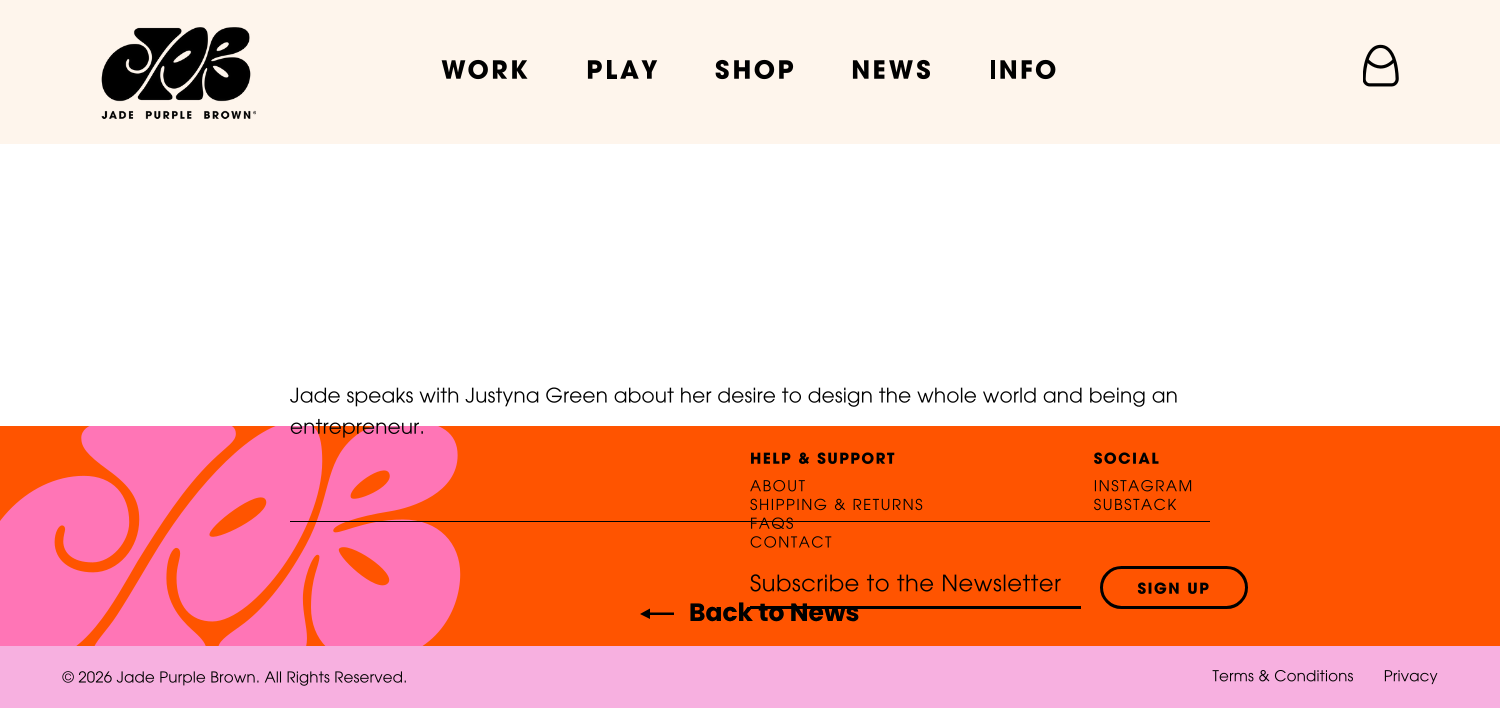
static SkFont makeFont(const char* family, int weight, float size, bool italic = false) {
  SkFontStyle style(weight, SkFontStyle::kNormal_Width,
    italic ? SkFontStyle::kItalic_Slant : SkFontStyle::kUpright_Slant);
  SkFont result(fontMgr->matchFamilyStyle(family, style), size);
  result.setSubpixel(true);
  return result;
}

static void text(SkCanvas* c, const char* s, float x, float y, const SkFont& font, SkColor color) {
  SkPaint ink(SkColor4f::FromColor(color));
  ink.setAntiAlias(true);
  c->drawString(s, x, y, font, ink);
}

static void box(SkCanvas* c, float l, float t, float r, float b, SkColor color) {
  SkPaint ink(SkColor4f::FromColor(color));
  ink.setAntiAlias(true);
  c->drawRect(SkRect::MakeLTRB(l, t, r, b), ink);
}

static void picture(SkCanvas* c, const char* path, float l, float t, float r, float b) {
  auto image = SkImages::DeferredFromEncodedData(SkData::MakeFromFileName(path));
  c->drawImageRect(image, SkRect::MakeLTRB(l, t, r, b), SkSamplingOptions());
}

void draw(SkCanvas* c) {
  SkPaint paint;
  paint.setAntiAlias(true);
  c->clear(0xffffffff);
  box(c, 0, 0, 1500, 144, 0xfffef5ec);
  picture(c, "img_01.png", 101, 27, 256, 119);
  picture(c, "img_02.png", 441, 60, 466, 79);
  picture(c, "img_03.png", 468, 59, 488, 80);
  picture(c, "img_04.png", 492, 60, 507, 79);
  picture(c, "img_05.png", 512, 60, 528, 79);
  picture(c, "img_06.png", 587, 60, 602, 79);
  paint.setColor(0xff000000);
  c->drawPath(SkPathBuilder().moveTo(617, 79).lineTo(607, 79).lineTo(607, 60).lineTo(611.5f, 60).lineTo(611.5f, 74.5f).lineTo(617, 74.5f).close().detach(), paint);
  picture(c, "img_07.png", 620, 60, 639, 79);
  picture(c, "img_08.png", 641, 60, 658, 79);
  picture(c, "img_09.png", 715, 59, 729, 80);
  picture(c, "img_10.png", 734, 60, 750, 79);
  picture(c, "img_11.png", 754, 59, 775, 80);
  picture(c, "img_12.png", 779, 60, 794, 79);
  picture(c, "img_13.png", 852, 60, 869, 79);
  picture(c, "img_14.png", 874, 60, 885, 79);
  picture(c, "img_15.png", 889, 60, 913, 79);
  picture(c, "img_16.png", 916, 59, 930, 80);
  box(c, 991, 60, 995, 79, 0xff000000);
  picture(c, "img_17.png", 1000, 60, 1017, 79);
  picture(c, "img_18.png", 1021, 60, 1032, 79);
  picture(c, "img_19.png", 1035, 59, 1056, 80);
  picture(c, "img_20.png", 1363, 44, 1399, 87);
  box(c, 0, 426, 1500, 646, 0xffff5400);
  picture(c, "img_21.png", 0, 426, 461, 646);
  picture(c, "img_22.png", 751, 452, 895, 464);
  picture(c, "img_23.png", 750, 480, 805, 492);
  picture(c, "img_24.png", 750, 498, 923, 511);
  picture(c, "img_25.png", 751, 517, 793, 529);
  picture(c, "img_26.png", 750, 536, 832, 548);
  picture(c, "img_27.png", 1094, 452, 1159, 464);
  picture(c, "img_28.png", 1094, 480, 1192, 492);
  picture(c, "img_29.png", 1094, 498, 1176, 511);
  box(c, 750, 606, 1081, 609, 0xff000000);
  picture(c, "img_30.png", 750, 574, 1061, 592);
  paint.setStyle(SkPaint::kStroke_Style);
  paint.setStrokeWidth(3);
  c->drawRoundRect(SkRect::MakeLTRB(1101.5f, 567.5f, 1246.5f, 607.5f), 20, 20, paint);
  picture(c, "img_31.png", 1137, 582, 1209, 594);
  box(c, 0, 646, 1500, 708, 0xfff7b0e0);
  picture(c, "img_32.png", 62, 671, 406, 686);
  picture(c, "img_33.png", 1212, 670, 1353, 682);
  picture(c, "img_34.png", 1384, 670, 1438, 685);
  picture(c, "img_35.png", 290, 387, 1177, 407);
  picture(c, "img_36.png", 290, 418, 423, 438);
  box(c, 290, 521, 1210, 522, 0xff000000);
  paint.setStyle(SkPaint::kFill_Style);
  c->drawPath(SkPathBuilder().moveTo(674, 612.5f).lineTo(674, 615).lineTo(650, 615).lineTo(650, 619).lineTo(640, 614).lineTo(650, 608.5f).lineTo(650, 612.5f).close().detach(), paint);
  SkFont face1 = makeFont("Poppins", 700, 25);
  text(c, "Back to News", 689, 621, face1, 0xff000000);
}
